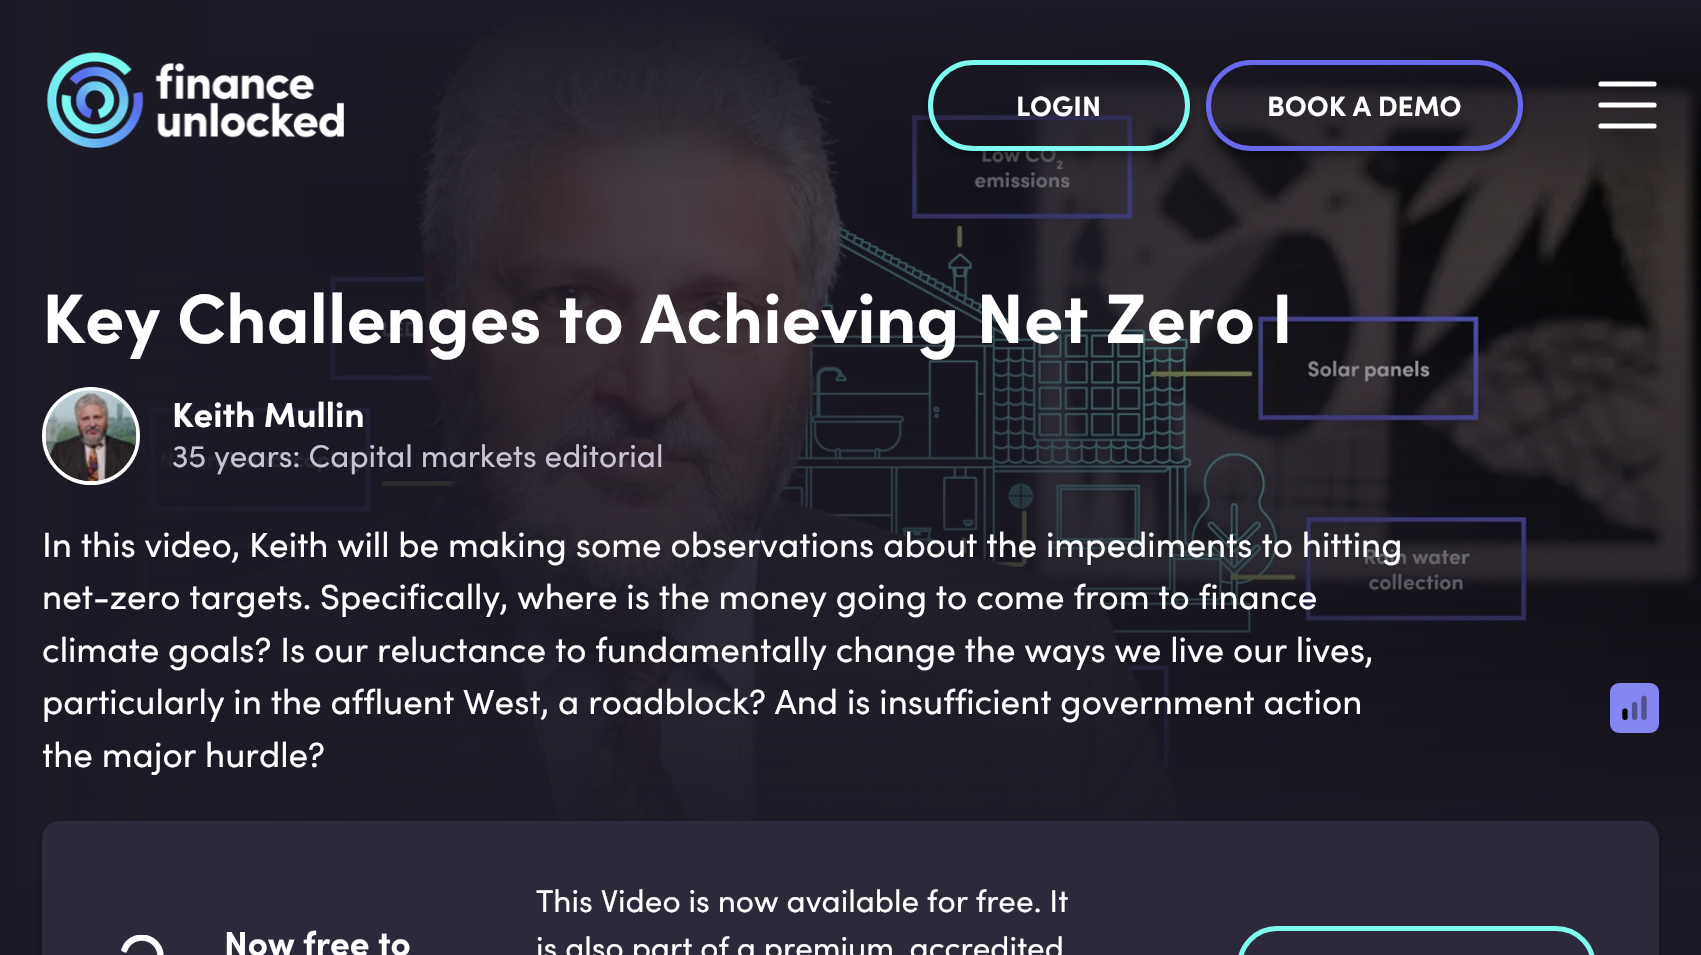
static SkFont makeFont(const char* family, int weight, float size, bool italic = false) {
  SkFontStyle style(weight, SkFontStyle::kNormal_Width,
    italic ? SkFontStyle::kItalic_Slant : SkFontStyle::kUpright_Slant);
  SkFont result(fontMgr->matchFamilyStyle(family, style), size);
  result.setSubpixel(true);
  return result;
}

static void text(SkCanvas* c, const char* s, float x, float y, const SkFont& font, SkColor color) {
  SkPaint ink(SkColor4f::FromColor(color));
  ink.setAntiAlias(true);
  c->drawString(s, x, y, font, ink);
}

static void roundBox(SkCanvas* c, float l, float t, float r, float b, float radius, SkColor color) {
  SkPaint ink(SkColor4f::FromColor(color));
  ink.setAntiAlias(true);
  c->drawRoundRect(SkRect::MakeLTRB(l, t, r, b), radius, radius, ink);
}

static void picture(SkCanvas* c, const char* path, float l, float t, float r, float b) {
  auto image = SkImages::DeferredFromEncodedData(SkData::MakeFromFileName(path));
  c->drawImageRect(image, SkRect::MakeLTRB(l, t, r, b), SkSamplingOptions());
}

void draw(SkCanvas* c) {
  SkPaint paint;
  paint.setAntiAlias(true);
  c->clear(0xff1b1925);
  picture(c, "img_02.png", 18, 1, 1701, 882);
  {
    const SkColor colors[] = {0xff1b1925, 0xab1b1925, 0x001b1925};
    const float stops[] = {0, 0.6f, 1};
    const SkPoint ends[] = {{0, 443}, {1701, 443}};
    paint.setShader(SkGradientShader::MakeLinear(ends, colors, stops, 3, SkTileMode::kClamp));
    paint.setAlpha(255);
  }
  c->drawRect(SkRect::MakeLTRB(18, 1, 1647, 882), paint);
  {
    const SkColor colors[] = {0xff1b1925, 0x001b1925};
    const float stops[] = {0, 1};
    const SkPoint ends[] = {{851, 0}, {851, 187}};
    paint.setShader(SkGradientShader::MakeLinear(ends, colors, stops, 2, SkTileMode::kClamp));
    paint.setAlpha(255);
  }
  c->drawRect(SkRect::MakeLTRB(209, 1, 1701, 182), paint);
  picture(c, "img_01.png", 46, 52, 344, 148);
  c->save();
  c->clipPath(SkPathBuilder(SkPathFillType::kEvenOdd).moveTo(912, 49).lineTo(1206, 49).lineTo(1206, 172).lineTo(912, 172).close().moveTo(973.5f, 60).lineTo(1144.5f, 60).cubicTo(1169.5f, 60, 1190, 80.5f, 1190, 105.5f).cubicTo(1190, 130.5f, 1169.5f, 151, 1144.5f, 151).lineTo(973.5f, 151).cubicTo(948.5f, 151, 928, 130.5f, 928, 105.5f).cubicTo(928, 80.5f, 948.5f, 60, 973.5f, 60).close().detach(), true);
  paint.setShader(nullptr);
  paint.setColor(0x66000000);
  paint.setMaskFilter(SkMaskFilter::MakeBlur(kNormal_SkBlurStyle, 5));
  c->drawRoundRect(SkRect::MakeLTRB(928, 65, 1190, 156), 45.5f, 45.5f, paint);
  paint.setMaskFilter(nullptr);
  c->restore();
  paint.setStyle(SkPaint::kStroke_Style);
  paint.setStrokeWidth(5);
  paint.setColor(0xff7efcf0);
  c->drawRoundRect(SkRect::MakeLTRB(930.5f, 62.5f, 1187.5f, 148.5f), 43, 43, paint);
  SkFont face1 = makeFont("Sofia", 700, 28);
  text(c, "LOGIN", 1016, 116, face1, 0xffffffff);
  c->save();
  c->clipPath(SkPathBuilder(SkPathFillType::kEvenOdd).moveTo(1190, 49).lineTo(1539, 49).lineTo(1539, 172).lineTo(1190, 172).close().moveTo(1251.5f, 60).lineTo(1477.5f, 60).cubicTo(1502.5f, 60, 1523, 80.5f, 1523, 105.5f).cubicTo(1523, 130.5f, 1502.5f, 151, 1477.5f, 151).lineTo(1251.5f, 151).cubicTo(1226.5f, 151, 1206, 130.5f, 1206, 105.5f).cubicTo(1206, 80.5f, 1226.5f, 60, 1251.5f, 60).close().detach(), true);
  paint.setStyle(SkPaint::kFill_Style);
  paint.setColor(0x66000000);
  paint.setMaskFilter(SkMaskFilter::MakeBlur(kNormal_SkBlurStyle, 5));
  c->drawRoundRect(SkRect::MakeLTRB(1206, 65, 1523, 156), 45.5f, 45.5f, paint);
  paint.setMaskFilter(nullptr);
  c->restore();
  paint.setStyle(SkPaint::kStroke_Style);
  paint.setColor(0xff6869ed);
  c->drawRoundRect(SkRect::MakeLTRB(1208.5f, 62.5f, 1520.5f, 148.5f), 43, 43, paint);
  text(c, "BOOK A DEMO", 1267, 116, face1, 0xffffffff);
  paint.setStrokeWidth(5.2f);
  paint.setStrokeCap(SkPaint::kRound_Cap);
  paint.setStrokeJoin(SkPaint::kRound_Join);
  paint.setColor(0xffffffff);
  c->drawPath(SkPathBuilder().moveTo(1601, 84).lineTo(1654, 84).moveTo(1601, 105).lineTo(1654, 105).moveTo(1601, 126).lineTo(1654, 126).detach(), paint);
  paint.setStyle(SkPaint::kFill_Style);
  {
    const SkColor colors[] = {0xff1b1925, 0x001b1925};
    const float stops[] = {0, 1};
    const SkPoint ends[] = {{851, 886}, {851, 233}};
    paint.setShader(SkGradientShader::MakeLinear(ends, colors, stops, 2, SkTileMode::kClamp));
    paint.setAlpha(255);
  }
  c->drawRect(SkRect::MakeLTRB(143, 257, 1701, 882), paint);
  SkFont face2 = makeFont("Sofia", 700, 70);
  text(c, "Key Challenges to Achieving Net Zero I", 42, 343, face2, 0xffffffff);
  paint.setStyle(SkPaint::kStroke_Style);
  paint.setStrokeWidth(4);
  paint.setStrokeCap(SkPaint::kButt_Cap);
  paint.setStrokeJoin(SkPaint::kMiter_Join);
  paint.setShader(nullptr);
  paint.setColor(0xffffffff);
  c->drawCircle(91, 436, 47, paint);
  picture(c, "img_03.png", 45, 390, 137, 481);
  SkFont face3 = makeFont("Sofia", 700, 35);
  text(c, "Keith Mullin", 172, 427, face3, 0xffffffff);
  SkFont face4 = makeFont("Sofia", 400, 31.5f);
  text(c, "35 years: Capital markets editorial", 172, 467, face4, 0xffc9c4d4);
  SkFont face5 = makeFont("Sofia", 400, 35);
  text(c, "In this video, Keith will be making some observations about the impediments to hitting", 42, 557, face5, 0xffffffff);
  text(c, "net-zero targets. Specifically, where is the money going to come from to finance", 42, 609, face5, 0xffffffff);
  text(c, "climate goals? Is our reluctance to fundamentally change the ways we live our lives,", 42, 662, face5, 0xffffffff);
  text(c, "particularly in the affluent West, a roadblock? And is insufficient government action", 42, 714, face5, 0xffffffff);
  text(c, "the major hurdle?", 42, 767, face5, 0xffffffff);
  roundBox(c, 1610, 683, 1659, 733, 9, 0xff8686f1);
  picture(c, "img_04.png", 1622, 695, 1647, 721);
  paint.setStyle(SkPaint::kFill_Style);
  paint.setColor(0x4d000000);
  paint.setMaskFilter(SkMaskFilter::MakeBlur(kNormal_SkBlurStyle, 4.5f));
  c->drawRoundRect(SkRect::MakeLTRB(42, 826, 1659, 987), 18, 18, paint);
  paint.setMaskFilter(nullptr);
  roundBox(c, 42, 821, 1659, 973, 18, 0xff2d293b);
  picture(c, "img_05.png", 121, 935, 164, 955);
  text(c, "Now free to", 224, 956, face3, 0xffffffff);
  text(c, "This Video is now available for free. It", 536, 912, face4, 0xffffffff);
  text(c, "is also part of a premium, accredited", 536, 959, face4, 0xffffffff);
  paint.setStyle(SkPaint::kStroke_Style);
  paint.setStrokeWidth(5);
  paint.setColor(0xff7efcf0);
  c->drawRoundRect(SkRect::MakeLTRB(1239.5f, 928.5f, 1593.5f, 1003.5f), 43, 43, paint);
}
